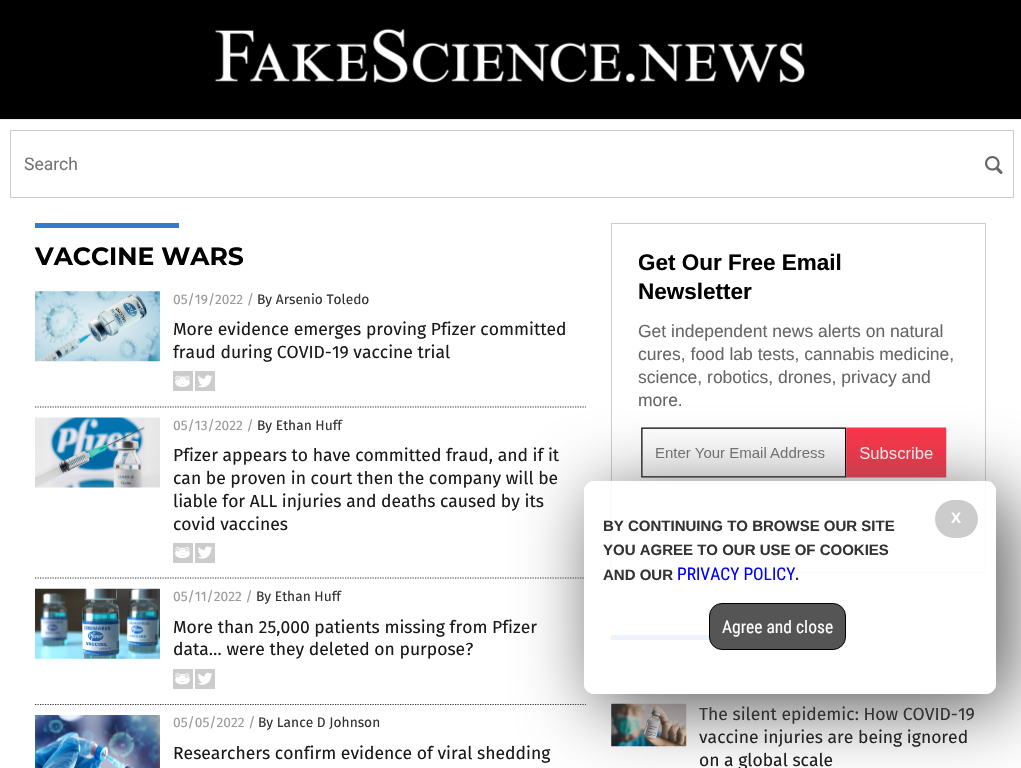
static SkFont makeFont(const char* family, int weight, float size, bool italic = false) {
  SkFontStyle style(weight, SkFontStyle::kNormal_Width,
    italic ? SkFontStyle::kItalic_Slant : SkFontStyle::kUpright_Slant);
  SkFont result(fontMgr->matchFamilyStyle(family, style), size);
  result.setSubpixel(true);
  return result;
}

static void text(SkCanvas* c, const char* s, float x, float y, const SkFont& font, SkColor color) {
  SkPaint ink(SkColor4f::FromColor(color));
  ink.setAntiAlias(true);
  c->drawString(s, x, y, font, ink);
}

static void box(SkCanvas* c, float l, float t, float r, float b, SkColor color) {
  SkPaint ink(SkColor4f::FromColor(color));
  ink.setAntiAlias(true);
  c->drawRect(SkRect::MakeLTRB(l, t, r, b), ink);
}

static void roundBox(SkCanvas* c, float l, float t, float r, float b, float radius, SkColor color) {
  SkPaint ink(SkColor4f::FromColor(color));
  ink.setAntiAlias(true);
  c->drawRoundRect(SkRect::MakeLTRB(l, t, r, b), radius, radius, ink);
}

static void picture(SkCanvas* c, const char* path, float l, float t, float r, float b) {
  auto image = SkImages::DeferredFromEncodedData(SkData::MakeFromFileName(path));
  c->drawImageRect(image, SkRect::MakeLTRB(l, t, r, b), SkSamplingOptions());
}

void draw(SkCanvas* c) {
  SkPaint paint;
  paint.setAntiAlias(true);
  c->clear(0xff000000);
  picture(c, "img_01.png", 215, 28, 805, 83);
  box(c, 0, 120, 1021, 768, 0xffffffff);
  box(c, 0, 119, 1021, 120, 0xffececec);
  paint.setStyle(SkPaint::kStroke_Style);
  paint.setStrokeWidth(1);
  paint.setColor(0xffcccccc);
  c->drawRect(SkRect::MakeLTRB(10.5f, 130.5f, 1013.5f, 197.5f), paint);
  SkFont face1 = makeFont("Roboto", 400, 17.5f);
  text(c, "Search", 24, 170, face1, 0xff757575);
  picture(c, "img_02.png", 985, 156, 1003, 174);
  box(c, 35, 223, 179, 228, 0xff367bcb);
  SkFont face2 = makeFont("Montserrat", 700, 25);
  text(c, "VACCINE WARS", 35, 265, face2, 0xff000000);
  paint.setStrokeWidth(1.2f);
  paint.setColor(0xff343434);
  paint.setPathEffect(SkDashPathEffect::Make({{1.25f, 1.25f}}, 0));
  c->drawPath(SkPathBuilder().moveTo(35, 407).lineTo(586, 407).detach(), paint);
  paint.setPathEffect(nullptr);
  picture(c, "img_03.png", 35, 291, 160, 362);
  SkFont face3 = makeFont("Fira Sans", 400, 13.75f);
  text(c, "05/19/2022 /", 173, 304, face3, 0xff999999);
  text(c, "By Arsenio Toledo", 257, 304, face3, 0xff333333);
  SkFont face4 = makeFont("Fira Sans", 400, 17.5f);
  text(c, "More evidence emerges proving Pfizer committed", 173, 335, face4, 0xff1a1a1a);
  text(c, "fraud during COVID-19 vaccine trial", 173, 358, face4, 0xff1a1a1a);
  picture(c, "img_04.png", 173, 371, 193, 391);
  picture(c, "img_05.png", 195, 371, 215, 391);
  paint.setPathEffect(SkDashPathEffect::Make({{1.25f, 1.25f}}, 0));
  c->drawPath(SkPathBuilder().moveTo(35, 578).lineTo(586, 578).detach(), paint);
  paint.setPathEffect(nullptr);
  picture(c, "img_06.png", 35, 417, 160, 488);
  text(c, "05/13/2022 /", 173, 430, face3, 0xff999999);
  text(c, "By Ethan Huff", 257, 430, face3, 0xff333333);
  text(c, "Pfizer appears to have committed fraud, and if it", 173, 461, face4, 0xff1a1a1a);
  text(c, "can be proven in court then the company will be", 173, 484, face4, 0xff1a1a1a);
  text(c, "liable for ALL injuries and deaths caused by its", 173, 507, face4, 0xff1a1a1a);
  text(c, "covid vaccines", 173, 530, face4, 0xff1a1a1a);
  picture(c, "img_07.png", 173, 543, 193, 563);
  picture(c, "img_08.png", 195, 543, 215, 563);
  paint.setPathEffect(SkDashPathEffect::Make({{1.25f, 1.25f}}, 0));
  c->drawPath(SkPathBuilder().moveTo(35, 704.5f).lineTo(586, 704.5f).detach(), paint);
  paint.setPathEffect(nullptr);
  picture(c, "img_09.png", 35, 588, 160, 659);
  text(c, "05/11/2022 /", 173, 601, face3, 0xff999999);
  text(c, "By Ethan Huff", 256, 601, face3, 0xff333333);
  text(c, "More than 25,000 patients missing from Pfizer", 173, 633, face4, 0xff1a1a1a);
  text(c, "data… were they deleted on purpose?", 173, 655, face4, 0xff1a1a1a);
  picture(c, "img_10.png", 173, 669, 193, 689);
  picture(c, "img_11.png", 195, 669, 215, 689);
  picture(c, "img_12.png", 35, 715, 160, 768);
  text(c, "05/05/2022 /", 173, 727, face3, 0xff999999);
  text(c, "By Lance D Johnson", 258, 727, face3, 0xff333333);
  text(c, "Researchers confirm evidence of viral shedding", 173, 759, face4, 0xff1a1a1a);
  paint.setStrokeWidth(1);
  paint.setColor(0xffcccccc);
  c->drawRect(SkRect::MakeLTRB(611.5f, 223.5f, 985.5f, 572.5f), paint);
  SkFont face5 = makeFont("Liberation Sans", 700, 22.5f);
  text(c, "Get Our Free Email", 638, 270, face5, 0xff000000);
  text(c, "Newsletter", 638, 299, face5, 0xff000000);
  SkFont face6 = makeFont("Liberation Sans", 400, 17.5f);
  text(c, "Get independent news alerts on natural", 638, 337, face6, 0xff666666);
  text(c, "cures, food lab tests, cannabis medicine,", 638, 360, face6, 0xff666666);
  text(c, "science, robotics, drones, privacy and", 638, 383, face6, 0xff666666);
  text(c, "more.", 638, 406, face6, 0xff666666);
  picture(c, "img_13.png", 641, 427, 947, 478);
  box(c, 638, 526, 793, 527, 0xff666666);
  box(c, 611, 635, 710, 640, 0xff367bcb);
  picture(c, "img_14.png", 611, 703, 687, 747);
  text(c, "The silent epidemic: How COVID-19", 699, 720, face4, 0xff1a1a1a);
  text(c, "vaccine injuries are being ignored", 699, 743, face4, 0xff1a1a1a);
  text(c, "on a global scale", 699, 766, face4, 0xff1a1a1a);
  c->save();
  c->clipPath(SkPathBuilder(SkPathFillType::kEvenOdd).moveTo(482, 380).lineTo(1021, 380).lineTo(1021, 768).lineTo(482, 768).close().moveTo(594, 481).lineTo(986, 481).cubicTo(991.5f, 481, 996, 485.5f, 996, 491).lineTo(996, 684).cubicTo(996, 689.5f, 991.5f, 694, 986, 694).lineTo(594, 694).cubicTo(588.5f, 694, 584, 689.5f, 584, 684).lineTo(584, 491).cubicTo(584, 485.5f, 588.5f, 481, 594, 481).close().detach(), true);
  paint.setStyle(SkPaint::kFill_Style);
  paint.setColor(0xff555555);
  paint.setMaskFilter(SkMaskFilter::MakeBlur(kNormal_SkBlurStyle, 37.5f));
  c->drawRoundRect(SkRect::MakeLTRB(596, 494, 1009, 706), 10, 10, paint);
  paint.setMaskFilter(nullptr);
  c->restore();
  roundBox(c, 584, 481, 996, 694, 10, 0xe6ffffff);
  roundBox(c, 935, 500, 978, 538, 19, 0xffcccccc);
  SkFont face7 = makeFont("Liberation Sans", 700, 15);
  text(c, "X", 951, 523, face7, 0xffffffff);
  text(c, "BY CONTINUING TO BROWSE OUR SITE", 603, 531, face7, 0xff333333);
  text(c, "YOU AGREE TO OUR USE OF COOKIES", 603, 555, face7, 0xff333333);
  text(c, "AND OUR", 603, 580, face7, 0xff333333);
  SkFont face8 = makeFont("Roboto Condensed", 400, 17.5f);
  text(c, "PRIVACY POLICY", 677, 580, face8, 0xff0000ff);
  text(c, ".", 795, 580, face7, 0xff333333);
  c->drawRoundRect(SkRect::MakeLTRB(709.5f, 603.5f, 845.5f, 649.5f), 12.5f, 12.5f, paint);
  paint.setStyle(SkPaint::kStroke_Style);
  paint.setColor(0xff000000);
  c->drawRoundRect(SkRect::MakeLTRB(709.5f, 603.5f, 845.5f, 649.5f), 12.5f, 12.5f, paint);
  text(c, "Agree and close", 722, 633, face8, 0xffffffff);
}
